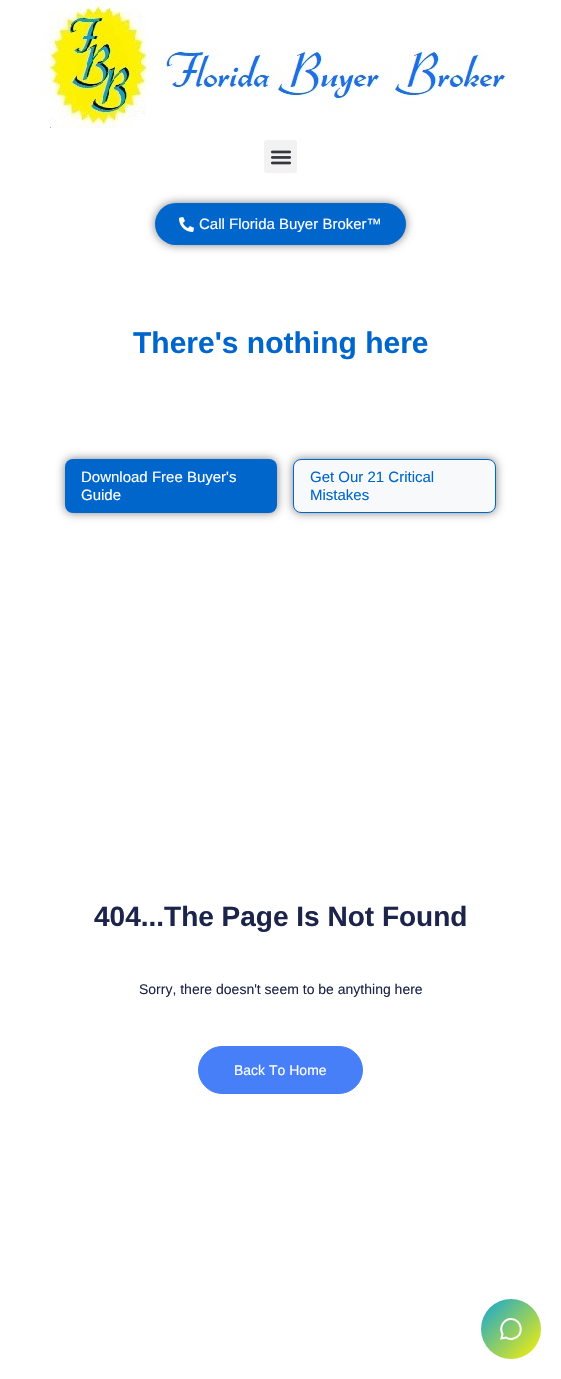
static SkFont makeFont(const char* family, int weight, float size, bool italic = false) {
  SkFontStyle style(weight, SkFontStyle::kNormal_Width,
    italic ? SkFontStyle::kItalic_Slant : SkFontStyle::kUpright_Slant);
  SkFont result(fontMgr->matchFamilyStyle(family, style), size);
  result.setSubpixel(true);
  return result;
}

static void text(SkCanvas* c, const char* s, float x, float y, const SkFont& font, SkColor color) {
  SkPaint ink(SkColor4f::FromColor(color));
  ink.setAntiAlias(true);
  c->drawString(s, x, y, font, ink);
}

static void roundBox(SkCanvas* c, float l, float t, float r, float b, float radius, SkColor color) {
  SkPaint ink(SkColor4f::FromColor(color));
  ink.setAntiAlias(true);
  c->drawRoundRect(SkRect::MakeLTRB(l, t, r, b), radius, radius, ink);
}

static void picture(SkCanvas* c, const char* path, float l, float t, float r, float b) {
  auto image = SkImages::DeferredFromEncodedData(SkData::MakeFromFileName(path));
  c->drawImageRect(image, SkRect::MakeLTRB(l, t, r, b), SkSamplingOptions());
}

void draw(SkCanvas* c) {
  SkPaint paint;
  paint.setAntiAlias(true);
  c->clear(0xffffffff);
  picture(c, "img_01.png", 41, 0, 506, 128);
  roundBox(c, 264, 140, 297, 173, 3, 0xfff2f2f2);
  picture(c, "img_02.png", 270, 150, 292, 165);
  paint.setColor(0x80000000);
  paint.setMaskFilter(SkMaskFilter::MakeBlur(kNormal_SkBlurStyle, 5));
  c->drawRoundRect(SkRect::MakeLTRB(155, 203, 406, 245), 21, 21, paint);
  paint.setMaskFilter(nullptr);
  roundBox(c, 155, 203, 406, 245, 21, 0xff0066cc);
  picture(c, "img_03.png", 179, 217, 194, 232);
  SkFont face1 = makeFont("Liberation Sans", 400, 15);
  text(c, "Call Florida Buyer Broker™", 199, 229, face1, 0xffffffff);
  SkFont face2 = makeFont("Liberation Sans", 700, 30);
  text(c, "There's nothing here", 133, 353, face2, 0xff0066cc);
  paint.setMaskFilter(SkMaskFilter::MakeBlur(kNormal_SkBlurStyle, 5));
  c->drawRoundRect(SkRect::MakeLTRB(65, 459, 277, 513), 8, 8, paint);
  paint.setMaskFilter(nullptr);
  roundBox(c, 65, 459, 277, 513, 8, 0xff0066cc);
  text(c, "Download Free Buyer's", 81, 482, face1, 0xffffffff);
  text(c, "Guide", 81, 500, face1, 0xffffffff);
  paint.setMaskFilter(SkMaskFilter::MakeBlur(kNormal_SkBlurStyle, 5));
  c->drawRoundRect(SkRect::MakeLTRB(293, 459, 496, 513), 8, 8, paint);
  paint.setMaskFilter(nullptr);
  paint.setColor(0xfff8f9fa);
  c->drawRoundRect(SkRect::MakeLTRB(293.5f, 459.5f, 495.5f, 512.5f), 7.5f, 7.5f, paint);
  paint.setStyle(SkPaint::kStroke_Style);
  paint.setStrokeWidth(1);
  paint.setColor(0xff0066cc);
  c->drawRoundRect(SkRect::MakeLTRB(293.5f, 459.5f, 495.5f, 512.5f), 7.5f, 7.5f, paint);
  text(c, "Get Our 21 Critical", 310, 482, face1, 0xff0066cc);
  text(c, "Mistakes", 310, 500, face1, 0xff0066cc);
  SkFont face3 = makeFont("Liberation Sans", 700, 28);
  text(c, "404...The Page Is Not Found", 94, 926, face3, 0xff1c244b);
  SkFont face4 = makeFont("Liberation Sans", 400, 14);
  text(c, "Sorry, there doesn't seem to be anything here", 139, 994, face4, 0xff1c244b);
  paint.setStyle(SkPaint::kFill_Style);
  paint.setColor(0xff467ff7);
  c->drawRoundRect(SkRect::MakeLTRB(198.5f, 1046.5f, 362.5f, 1093.5f), 23.5f, 23.5f, paint);
  paint.setStyle(SkPaint::kStroke_Style);
  c->drawRoundRect(SkRect::MakeLTRB(198.5f, 1046.5f, 362.5f, 1093.5f), 23.5f, 23.5f, paint);
  text(c, "Back To Home", 234, 1075, face4, 0xffffffff);
  paint.setStyle(SkPaint::kFill_Style);
  {
    const SkColor colors[] = {0xff0fa5d7, 0xfffef102};
    const float stops[] = {0, 1};
    const SkPoint ends[] = {{481, 1299}, {541, 1359}};
    paint.setShader(SkGradientShader::MakeLinear(ends, colors, stops, 2, SkTileMode::kClamp));
    paint.setAlpha(255);
  }
  c->drawCircle(511, 1329, 30, paint);
  paint.setStyle(SkPaint::kStroke_Style);
  paint.setStrokeWidth(2);
  paint.setShader(nullptr);
  paint.setColor(0xffffffff);
  c->drawPath(SkPathBuilder().moveTo(511, 1319).cubicTo(503.5f, 1319, 499, 1327.5f, 502.5f, 1334).lineTo(501.5f, 1338.5f).lineTo(506, 1337.5f).cubicTo(508, 1339, 511, 1339.5f, 513.5f, 1338.5f).cubicTo(524.5f, 1336, 522.5f, 1319, 511, 1319).close().detach(), paint);
}
